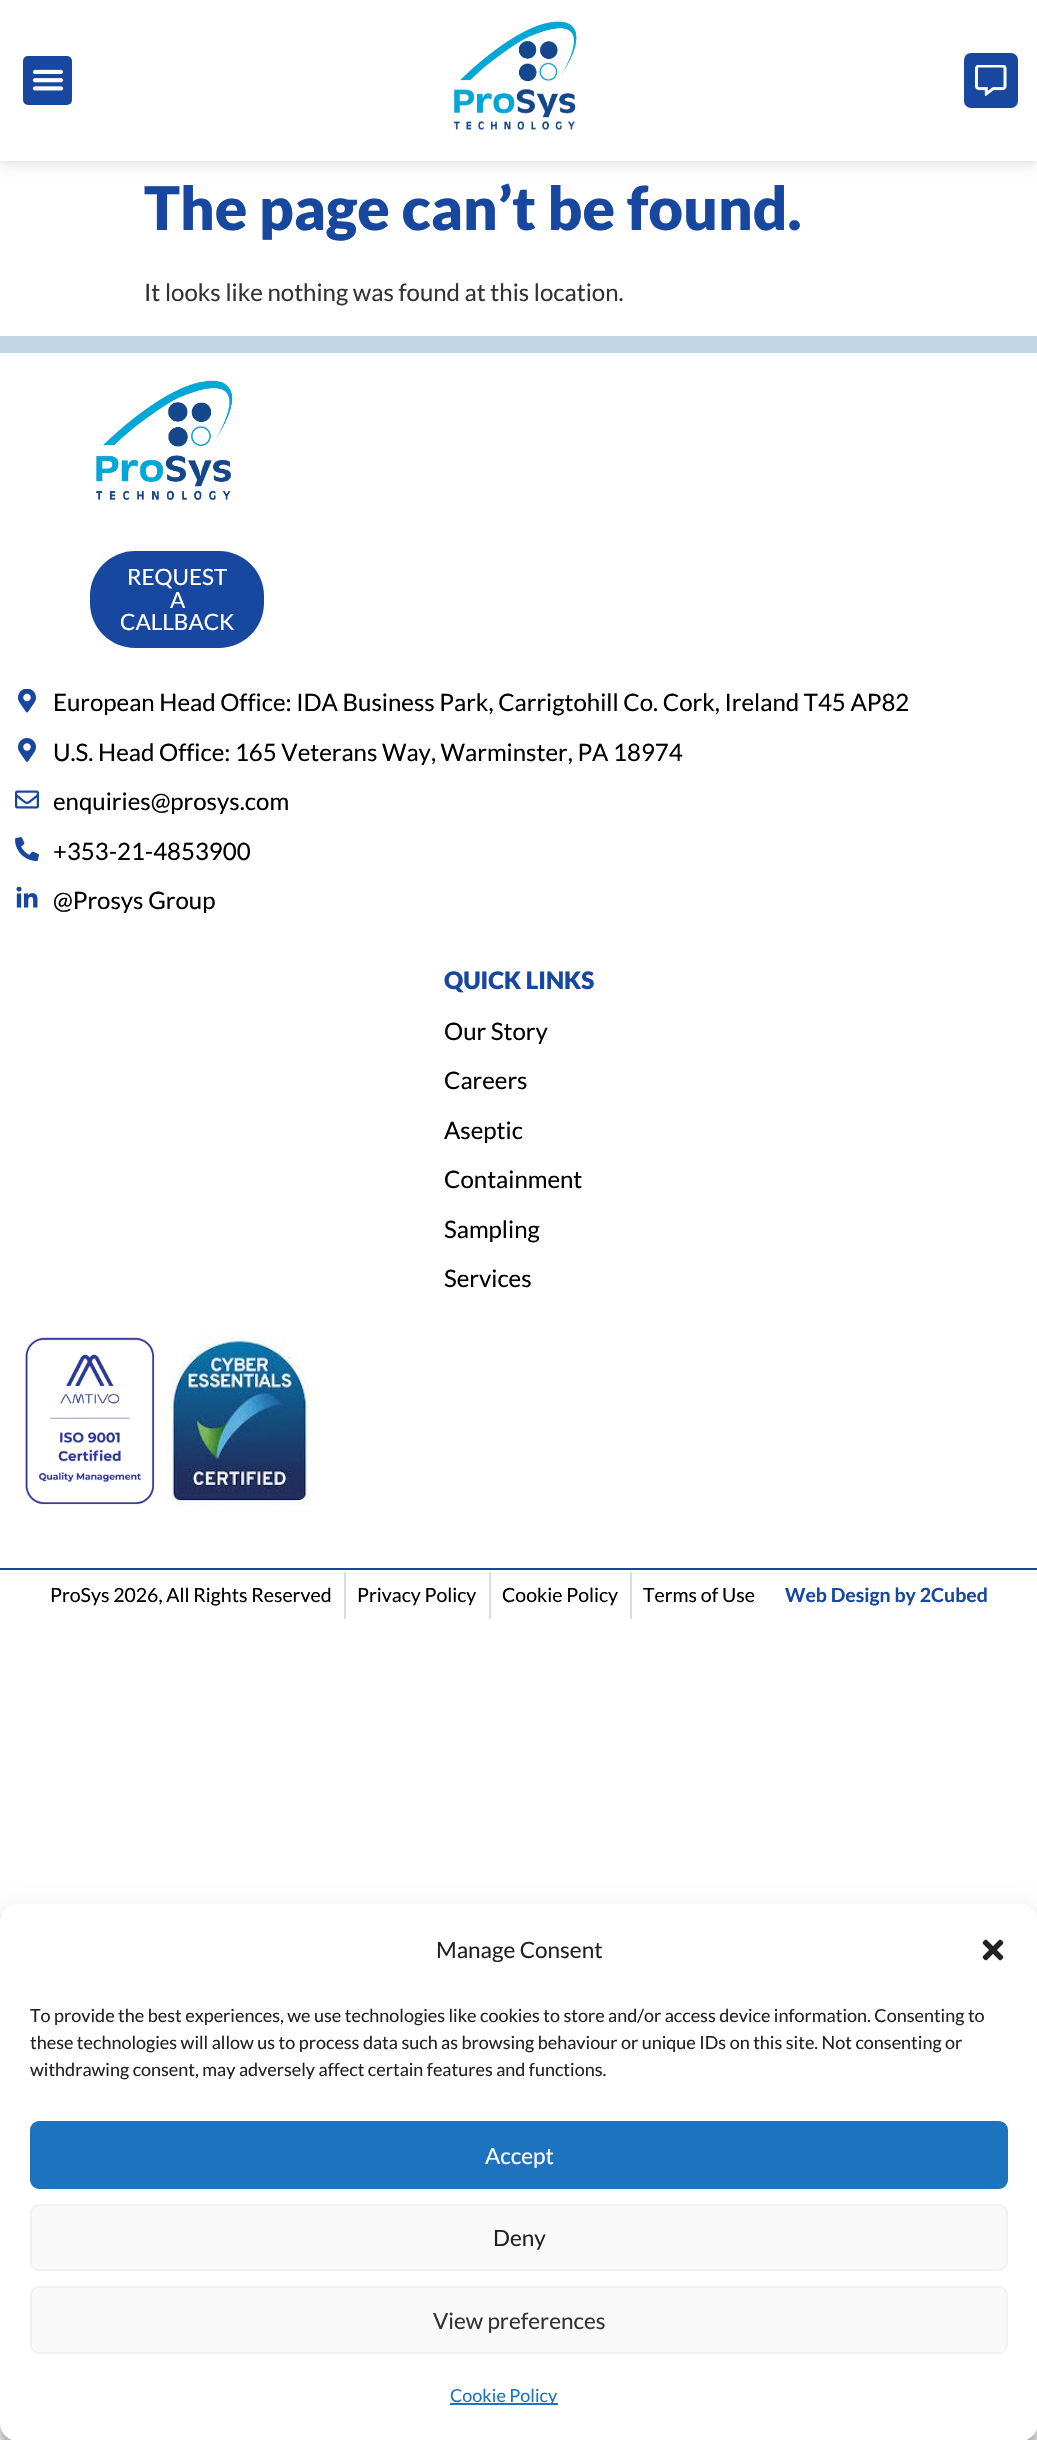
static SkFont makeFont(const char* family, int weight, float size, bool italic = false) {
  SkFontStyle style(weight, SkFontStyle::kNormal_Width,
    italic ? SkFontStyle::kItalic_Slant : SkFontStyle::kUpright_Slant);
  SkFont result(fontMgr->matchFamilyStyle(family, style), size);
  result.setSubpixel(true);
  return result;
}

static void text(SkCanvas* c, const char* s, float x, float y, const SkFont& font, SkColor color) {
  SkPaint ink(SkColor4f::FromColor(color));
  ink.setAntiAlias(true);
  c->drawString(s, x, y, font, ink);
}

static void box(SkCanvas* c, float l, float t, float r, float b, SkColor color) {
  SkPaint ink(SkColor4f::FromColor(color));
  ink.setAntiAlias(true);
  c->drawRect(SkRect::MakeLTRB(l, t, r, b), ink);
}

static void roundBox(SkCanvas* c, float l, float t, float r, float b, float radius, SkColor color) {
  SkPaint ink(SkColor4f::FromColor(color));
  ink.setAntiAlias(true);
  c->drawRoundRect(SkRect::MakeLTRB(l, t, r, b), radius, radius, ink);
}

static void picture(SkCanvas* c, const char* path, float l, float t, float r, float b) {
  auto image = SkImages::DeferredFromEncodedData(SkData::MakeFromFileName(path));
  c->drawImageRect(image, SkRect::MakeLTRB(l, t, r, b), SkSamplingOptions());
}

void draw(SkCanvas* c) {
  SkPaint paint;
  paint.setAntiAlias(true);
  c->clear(0xffffffff);
  paint.setColor(0x30000000);
  paint.setMaskFilter(SkMaskFilter::MakeBlur(kNormal_SkBlurStyle, 7.5f));
  c->drawRect(SkRect::MakeLTRB(0, 0, 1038, 161), paint);
  paint.setMaskFilter(nullptr);
  box(c, 0, 0, 1037, 161, 0xffffffff);
  roundBox(c, 23, 56, 72, 105, 5, 0xff17479e);
  picture(c, "img_01.png", 32, 69, 64, 91);
  picture(c, "img_02.png", 453, 21, 577, 130);
  paint.setColor(0xff17479e);
  c->drawRoundRect(SkRect::MakeLTRB(961.5f, 50.5f, 1020.5f, 110.5f), 9.5f, 9.5f, paint);
  paint.setStyle(SkPaint::kStroke_Style);
  paint.setStrokeWidth(5);
  paint.setColor(0xffffffff);
  c->drawRoundRect(SkRect::MakeLTRB(961.5f, 50.5f, 1020.5f, 110.5f), 9.5f, 9.5f, paint);
  picture(c, "img_03.png", 975, 65, 1007, 96);
  SkFont face1 = makeFont("Lato", 900, 60);
  text(c, "The page can’t be found.", 144, 230, face1, 0xff17479e);
  SkFont face2 = makeFont("Lato", 400, 24);
  text(c, "It looks like nothing was found at this location.", 144, 301, face2, 0xff333333);
  box(c, 0, 336, 1037, 353, 0xffc1d7e6);
  box(c, 0, 1568, 1037, 1570, 0xff17479e);
  picture(c, "img_04.png", 96, 380, 233, 500);
  roundBox(c, 90, 551, 264, 648, 45, 0xff17479e);
  SkFont face3 = makeFont("Lato", 400, 22.5f);
  text(c, "REQUEST", 127, 585, face3, 0xffffffff);
  text(c, "A", 170, 608, face3, 0xffffffff);
  text(c, "CALLBACK", 120, 630, face3, 0xffffffff);
  picture(c, "img_05.png", 18, 689, 36, 713);
  text(c, "European Head Office: IDA Business Park, Carrigtohill Co. Cork, Ireland T45 AP82", 53, 711, face2, 0xff000000);
  picture(c, "img_06.png", 18, 738, 36, 762);
  text(c, "U.S. Head Office: 165 Veterans Way, Warminster, PA 18974", 53, 761, face2, 0xff000000);
  picture(c, "img_07.png", 15, 790, 39, 809);
  text(c, "enquiries@prosys.com", 53, 810, face2, 0xff000000);
  picture(c, "img_08.png", 15, 837, 39, 861);
  text(c, "+353-21-4853900", 53, 860, face2, 0xff000000);
  picture(c, "img_09.png", 16, 887, 38, 908);
  text(c, "@Prosys Group", 53, 909, face2, 0xff000000);
  SkFont face4 = makeFont("Lato", 900, 24);
  text(c, "QUICK LINKS", 444, 989, face4, 0xff17479e);
  text(c, "Our Story", 444, 1040, face2, 0xff000000);
  text(c, "Careers", 444, 1089, face2, 0xff000000);
  text(c, "Aseptic", 444, 1139, face2, 0xff000000);
  text(c, "Containment", 444, 1188, face2, 0xff000000);
  text(c, "Sampling", 444, 1238, face2, 0xff000000);
  text(c, "Services", 444, 1287, face2, 0xff000000);
  picture(c, "img_10.png", 25, 1337, 155, 1505);
  picture(c, "img_11.png", 165, 1335, 315, 1507);
  SkFont face5 = makeFont("Lato", 400, 19.5f);
  text(c, "ProSys 2026, All Rights Reserved", 50, 1602, face5, 0xff000000);
  box(c, 344, 1572, 346, 1619, 0xffdddddd);
  text(c, "Privacy Policy", 357, 1602, face5, 0xff000000);
  box(c, 489, 1572, 491, 1619, 0xffdddddd);
  text(c, "Cookie Policy", 502, 1602, face5, 0xff000000);
  box(c, 630, 1572, 632, 1619, 0xffdddddd);
  text(c, "Terms of Use", 643, 1602, face5, 0xff000000);
  SkFont face6 = makeFont("Lato", 700, 19.5f);
  text(c, "Web Design by 2Cubed", 785, 1602, face6, 0xff17479e);
  paint.setStyle(SkPaint::kFill_Style);
  paint.setColor(0x3b000000);
  paint.setMaskFilter(SkMaskFilter::MakeBlur(kNormal_SkBlurStyle, 4.5f));
  c->drawRoundRect(SkRect::MakeLTRB(0, 1913, 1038, 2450), 18, 18, paint);
  paint.setMaskFilter(nullptr);
  paint.setColor(0x30000000);
  paint.setMaskFilter(SkMaskFilter::MakeBlur(kNormal_SkBlurStyle, 15));
  c->drawRoundRect(SkRect::MakeLTRB(0, 1919, 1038, 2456), 18, 18, paint);
  paint.setMaskFilter(nullptr);
  roundBox(c, 0, 1904, 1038, 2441, 18, 0xffffffff);
  text(c, "Manage Consent", 436, 1958, face3, 0xff222222);
  picture(c, "img_12.png", 982, 1939, 1004, 1961);
  SkFont face7 = makeFont("Lato", 400, 18);
  text(c, "To provide the best experiences, we use technologies like cookies to store and/or access device information. Consenting to", 30, 2022, face7, 0xff222222);
  text(c, "these technologies will allow us to process data such as browsing behaviour or unique IDs on this site. Not consenting or", 30, 2049, face7, 0xff222222);
  text(c, "withdrawing consent, may adversely affect certain features and functions.", 30, 2076, face7, 0xff222222);
  paint.setColor(0xff1e73be);
  c->drawRoundRect(SkRect::MakeLTRB(31, 2122, 1007, 2188), 8, 8, paint);
  paint.setStyle(SkPaint::kStroke_Style);
  paint.setStrokeWidth(2);
  c->drawRoundRect(SkRect::MakeLTRB(31, 2122, 1007, 2188), 8, 8, paint);
  text(c, "Accept", 485, 2164, face3, 0xffffffff);
  paint.setStyle(SkPaint::kFill_Style);
  paint.setColor(0xfff9f9f9);
  c->drawRoundRect(SkRect::MakeLTRB(31, 2205, 1007, 2270), 8, 8, paint);
  paint.setStyle(SkPaint::kStroke_Style);
  paint.setColor(0xfff2f2f2);
  c->drawRoundRect(SkRect::MakeLTRB(31, 2205, 1007, 2270), 8, 8, paint);
  text(c, "Deny", 493, 2246, face3, 0xff222222);
  paint.setStyle(SkPaint::kFill_Style);
  paint.setColor(0xfff9f9f9);
  c->drawRoundRect(SkRect::MakeLTRB(31, 2287, 1007, 2353), 8, 8, paint);
  paint.setStyle(SkPaint::kStroke_Style);
  paint.setColor(0xfff2f2f2);
  c->drawRoundRect(SkRect::MakeLTRB(31, 2287, 1007, 2353), 8, 8, paint);
  text(c, "View preferences", 433, 2329, face3, 0xff333333);
  box(c, 450, 2403, 558, 2405, 0xff1e73be);
  text(c, "Cookie Policy", 450, 2402, face7, 0xff1e73be);
}
